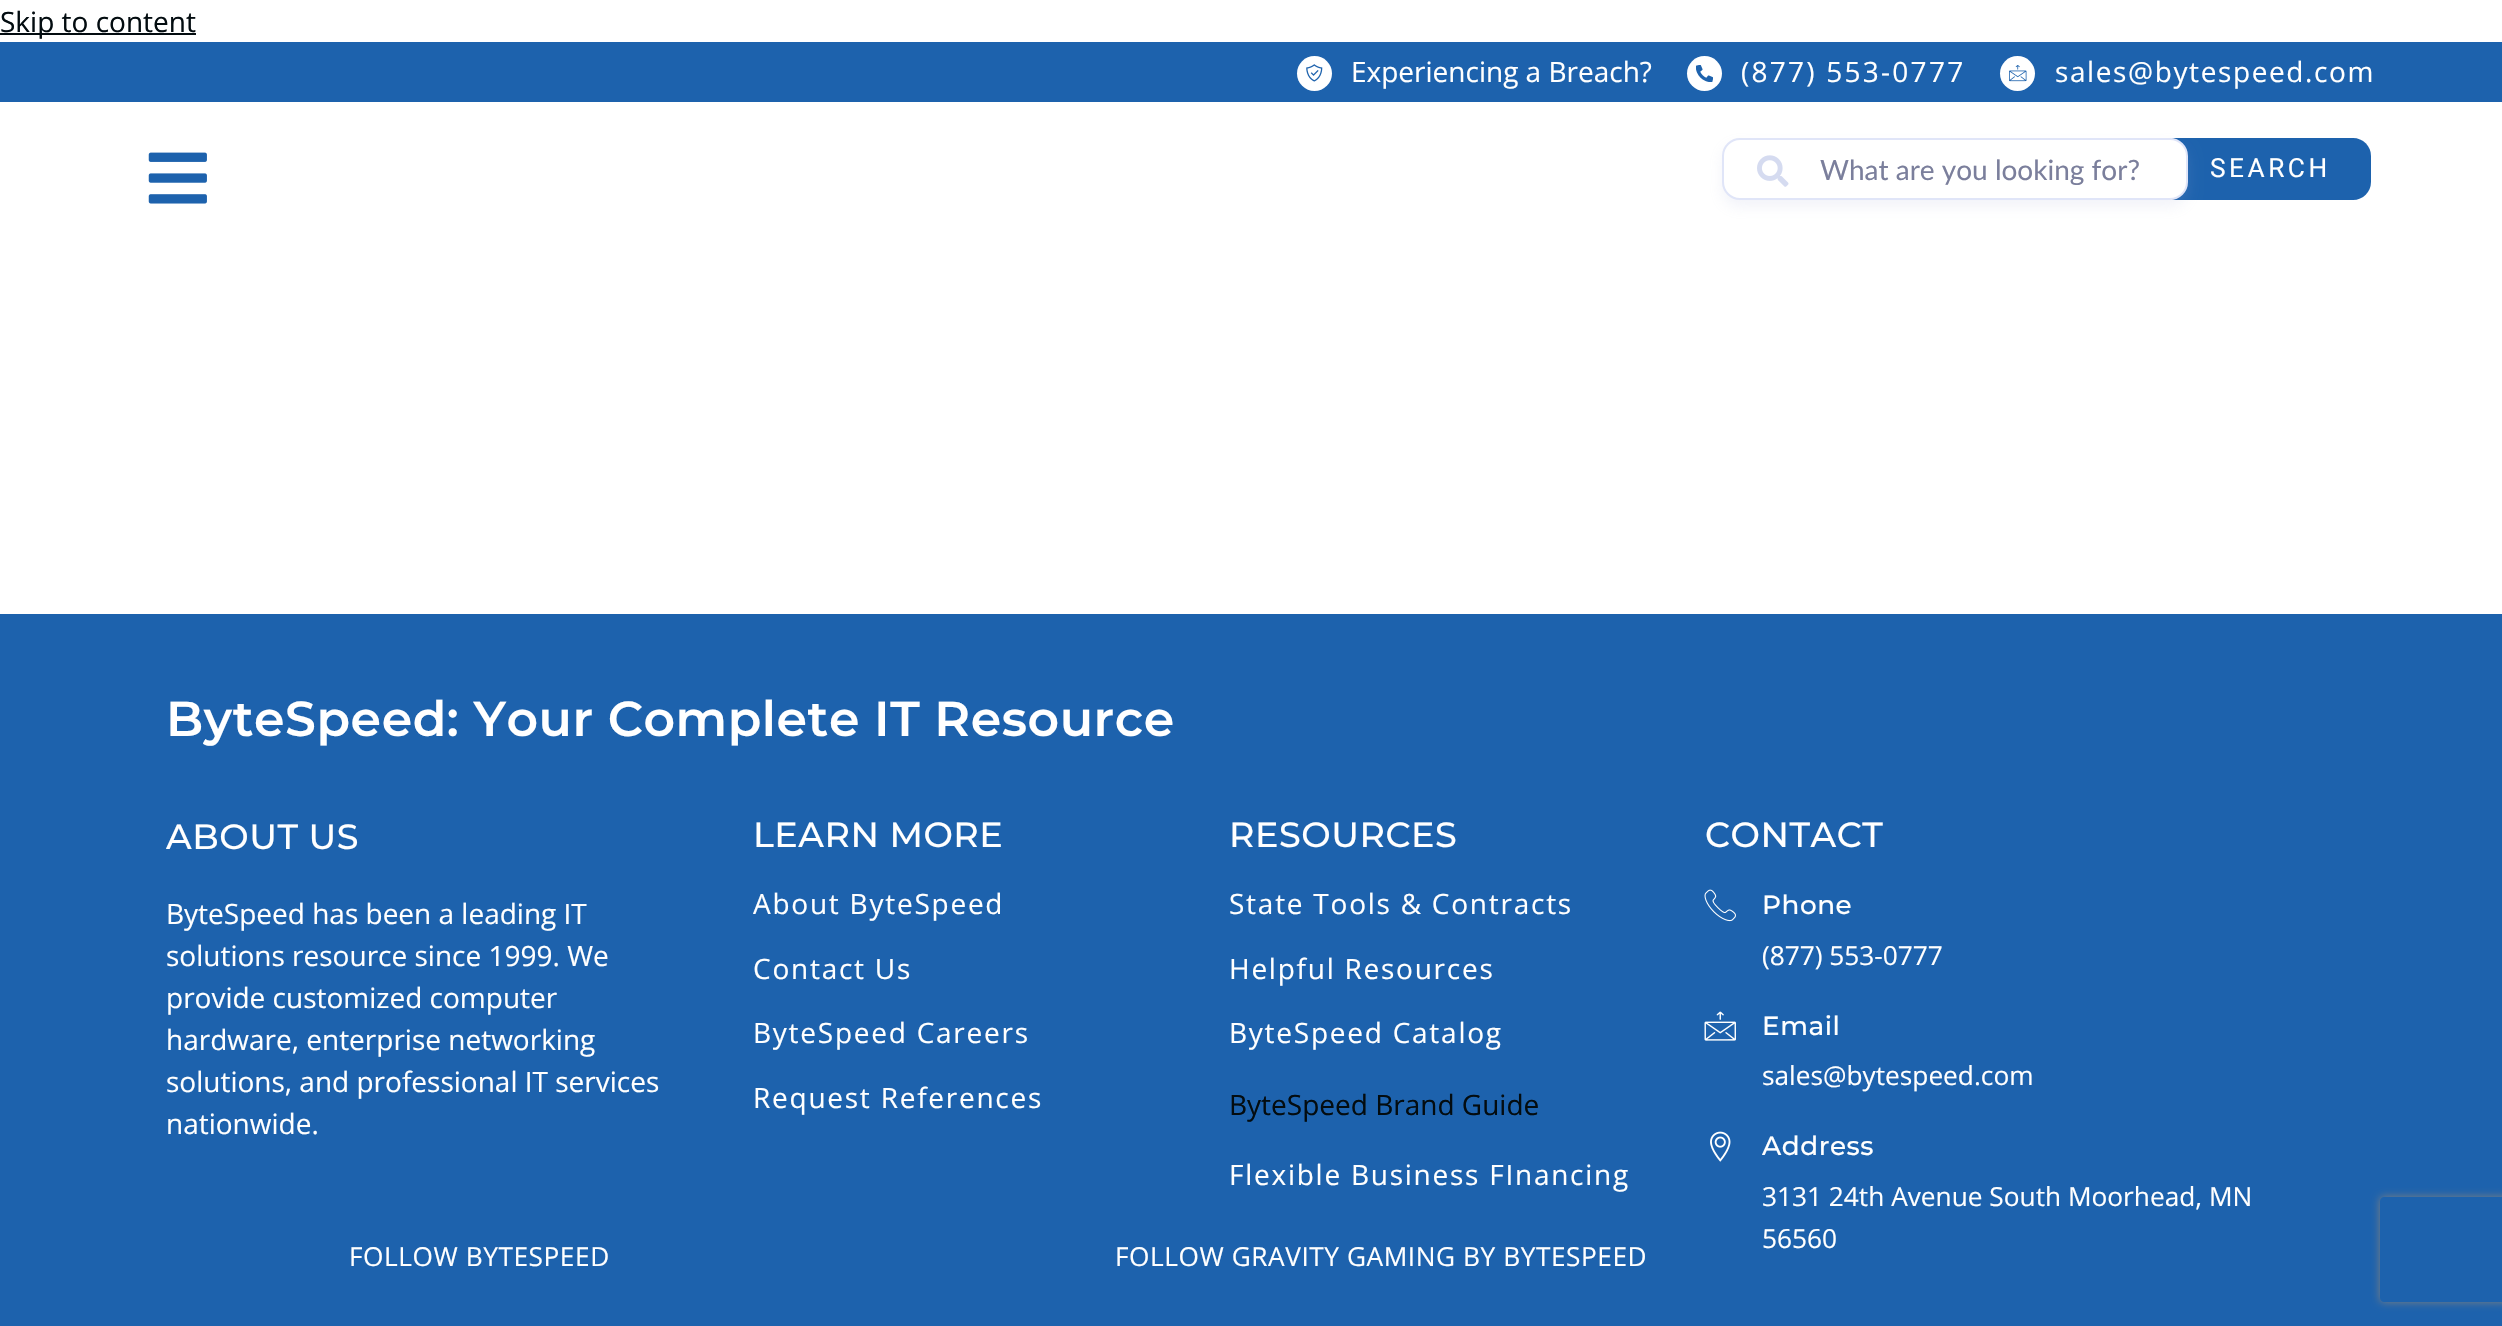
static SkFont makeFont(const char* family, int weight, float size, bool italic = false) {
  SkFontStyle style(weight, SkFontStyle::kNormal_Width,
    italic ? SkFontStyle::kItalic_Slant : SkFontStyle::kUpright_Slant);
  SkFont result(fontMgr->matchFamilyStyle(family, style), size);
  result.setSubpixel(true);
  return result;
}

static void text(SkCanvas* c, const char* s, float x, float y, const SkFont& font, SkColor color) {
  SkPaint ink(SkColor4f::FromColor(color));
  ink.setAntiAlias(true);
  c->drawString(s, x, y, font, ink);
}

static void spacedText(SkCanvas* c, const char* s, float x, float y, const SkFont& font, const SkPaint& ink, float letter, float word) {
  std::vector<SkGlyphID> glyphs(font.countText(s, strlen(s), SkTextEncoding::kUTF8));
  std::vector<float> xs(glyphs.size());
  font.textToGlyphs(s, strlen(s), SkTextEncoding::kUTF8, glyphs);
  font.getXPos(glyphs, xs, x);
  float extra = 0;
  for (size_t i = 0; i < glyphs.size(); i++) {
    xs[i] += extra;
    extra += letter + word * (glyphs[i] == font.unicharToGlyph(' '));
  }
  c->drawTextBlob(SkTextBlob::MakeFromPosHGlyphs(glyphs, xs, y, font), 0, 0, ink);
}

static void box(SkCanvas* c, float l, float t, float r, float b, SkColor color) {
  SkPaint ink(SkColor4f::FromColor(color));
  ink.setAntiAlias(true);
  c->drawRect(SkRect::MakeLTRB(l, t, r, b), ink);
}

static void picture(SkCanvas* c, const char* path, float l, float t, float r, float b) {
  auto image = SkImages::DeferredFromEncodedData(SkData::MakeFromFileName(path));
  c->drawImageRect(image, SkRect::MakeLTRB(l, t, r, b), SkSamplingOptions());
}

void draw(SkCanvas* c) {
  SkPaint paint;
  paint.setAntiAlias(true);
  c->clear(0xffffffff);
  box(c, 0, 33, 196, 35, 0xff030c10);
  SkFont face1 = makeFont("Open Sans", 400, 28);
  text(c, "Skip to content", 0, 32, face1, 0xff030c10);
  box(c, 0, 42, 2502, 102, 0xff1d62ad);
  paint.setColor(0xffffffff);
  c->drawCircle(1314.5f, 73.5f, 17.5f, paint);
  picture(c, "img_01.png", 1306, 64, 1323, 82);
  text(c, "Experiencing a Breach?", 1351, 82, face1, 0xffffffff);
  c->drawCircle(1704.5f, 73.5f, 17.5f, paint);
  picture(c, "img_02.png", 1696, 65, 1713, 82);
  spacedText(c, "(877) 553-0777", 1741, 82, face1, paint, 2.25f, 0);
  c->drawCircle(2017.5f, 73.5f, 17.5f, paint);
  picture(c, "img_03.png", 2009, 65, 2027, 82);
  spacedText(c, "sales@bytespeed.com", 2055, 82, face1, paint, 1.6f, 0);
  picture(c, "img_04.png", 148, 152, 207, 204);
  paint.setColor(0xff1d62ad);
  c->drawPath(SkPathBuilder().moveTo(2175, 138).lineTo(2353, 138).cubicTo(2363, 138, 2371, 146, 2371, 156).lineTo(2371, 182).cubicTo(2371, 192, 2363, 200, 2353, 200).lineTo(2175, 200).cubicTo(2172, 200, 2170, 198, 2170, 195).lineTo(2170, 143).cubicTo(2170, 140, 2172, 138, 2175, 138).close().detach(), paint);
  paint.setColor(0x26a5aed5);
  paint.setMaskFilter(SkMaskFilter::MakeBlur(kNormal_SkBlurStyle, 7));
  c->drawRoundRect(SkRect::MakeLTRB(1722, 145, 2188, 207), 18, 18, paint);
  paint.setMaskFilter(nullptr);
  paint.setColor(0xffffffff);
  c->drawRoundRect(SkRect::MakeLTRB(1723, 139, 2187, 199), 17, 17, paint);
  paint.setStyle(SkPaint::kStroke_Style);
  paint.setStrokeWidth(2);
  paint.setColor(0xffe0e5f8);
  c->drawRoundRect(SkRect::MakeLTRB(1723, 139, 2187, 199), 17, 17, paint);
  picture(c, "img_05.png", 1757, 155, 1789, 187);
  SkFont face2 = makeFont("Lato", 400, 28);
  text(c, "What are you looking for?", 1820, 180, face2, 0xff7b7f9c);
  SkFont face3 = makeFont("Roboto", 400, 26.25f);
  paint.setStyle(SkPaint::kFill_Style);
  paint.setColor(0xffffffff);
  spacedText(c, "SEARCH", 2210, 177, face3, paint, 3.5f, 0);
  box(c, 0, 614, 2502, 1326, 0xff1d62ad);
  SkFont face4 = makeFont("Montserrat", 600, 49);
  spacedText(c, "ByteSpeed: Your Complete IT Resource", 166, 736, face4, paint, 0.55f, 0);
  SkFont face5 = makeFont("Montserrat", 500, 35);
  spacedText(c, "ABOUT US", 166, 849, face5, paint, 0.55f, 0);
  text(c, "ByteSpeed has been a leading IT", 166, 924, face1, 0xffffffff);
  text(c, "solutions resource since 1999. We", 166, 966, face1, 0xffffffff);
  text(c, "provide customized computer", 166, 1008, face1, 0xffffffff);
  text(c, "hardware, enterprise networking", 166, 1050, face1, 0xffffffff);
  text(c, "solutions, and professional IT services", 166, 1092, face1, 0xffffffff);
  text(c, "nationwide.", 166, 1134, face1, 0xffffffff);
  spacedText(c, "LEARN MORE", 753, 847, face5, paint, 0.55f, 0);
  spacedText(c, "About ByteSpeed", 753, 914, face1, paint, 1.75f, 0);
  spacedText(c, "Contact Us", 753, 979, face1, paint, 1.75f, 0);
  spacedText(c, "ByteSpeed Careers", 753, 1043, face1, paint, 1.75f, 0);
  spacedText(c, "Request References", 753, 1108, face1, paint, 1.75f, 0);
  spacedText(c, "RESOURCES", 1229, 847, face5, paint, 0.55f, 0);
  spacedText(c, "State Tools & Contracts", 1229, 914, face1, paint, 1.75f, 0);
  spacedText(c, "Helpful Resources", 1229, 979, face1, paint, 1.75f, 0);
  spacedText(c, "ByteSpeed Catalog", 1229, 1043, face1, paint, 1.75f, 0);
  text(c, "ByteSpeed Brand Guide", 1229, 1115, face1, 0xff030c10);
  spacedText(c, "Flexible Business FInancing", 1229, 1185, face1, paint, 1.75f, 0);
  spacedText(c, "CONTACT", 1705, 847, face5, paint, 0.55f, 0);
  picture(c, "img_06.png", 1704, 889, 1736, 922);
  SkFont face6 = makeFont("Montserrat", 500, 26.25f);
  spacedText(c, "Phone", 1762, 914, face6, paint, 0.55f, 0);
  SkFont face7 = makeFont("Open Sans", 400, 26.25f);
  text(c, "(877) 553-0777", 1762, 965, face7, 0xffffffff);
  picture(c, "img_07.png", 1704, 1011, 1736, 1041);
  spacedText(c, "Email", 1762, 1035, face6, paint, 0.55f, 0);
  text(c, "sales@bytespeed.com", 1762, 1085, face7, 0xffffffff);
  picture(c, "img_08.png", 1710, 1131, 1731, 1162);
  spacedText(c, "Address", 1762, 1155, face6, paint, 0.55f, 0);
  text(c, "3131 24th Avenue South Moorhead, MN", 1762, 1206, face7, 0xffffffff);
  text(c, "56560", 1762, 1248, face7, 0xffffffff);
  spacedText(c, "FOLLOW BYTESPEED", 349, 1266, face7, paint, 0.55f, 0);
  spacedText(c, "FOLLOW GRAVITY GAMING BY BYTESPEED", 1115, 1266, face7, paint, 0.55f, 0);
  c->save();
  c->clipPath(SkPathBuilder(SkPathFillType::kEvenOdd).moveTo(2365, 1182).lineTo(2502, 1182).lineTo(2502, 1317).lineTo(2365, 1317).close().moveTo(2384, 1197).lineTo(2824, 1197).cubicTo(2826, 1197, 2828, 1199, 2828, 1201).lineTo(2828, 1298).cubicTo(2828, 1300, 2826, 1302, 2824, 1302).lineTo(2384, 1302).cubicTo(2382, 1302, 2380, 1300, 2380, 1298).lineTo(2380, 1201).cubicTo(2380, 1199, 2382, 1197, 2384, 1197).close().detach(), true);
  paint.setColor(0xff808080);
  paint.setMaskFilter(SkMaskFilter::MakeBlur(kNormal_SkBlurStyle, 4.5f));
  c->drawRoundRect(SkRect::MakeLTRB(2380, 1197, 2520, 1302), 4, 4, paint);
  paint.setMaskFilter(nullptr);
  c->restore();
}
